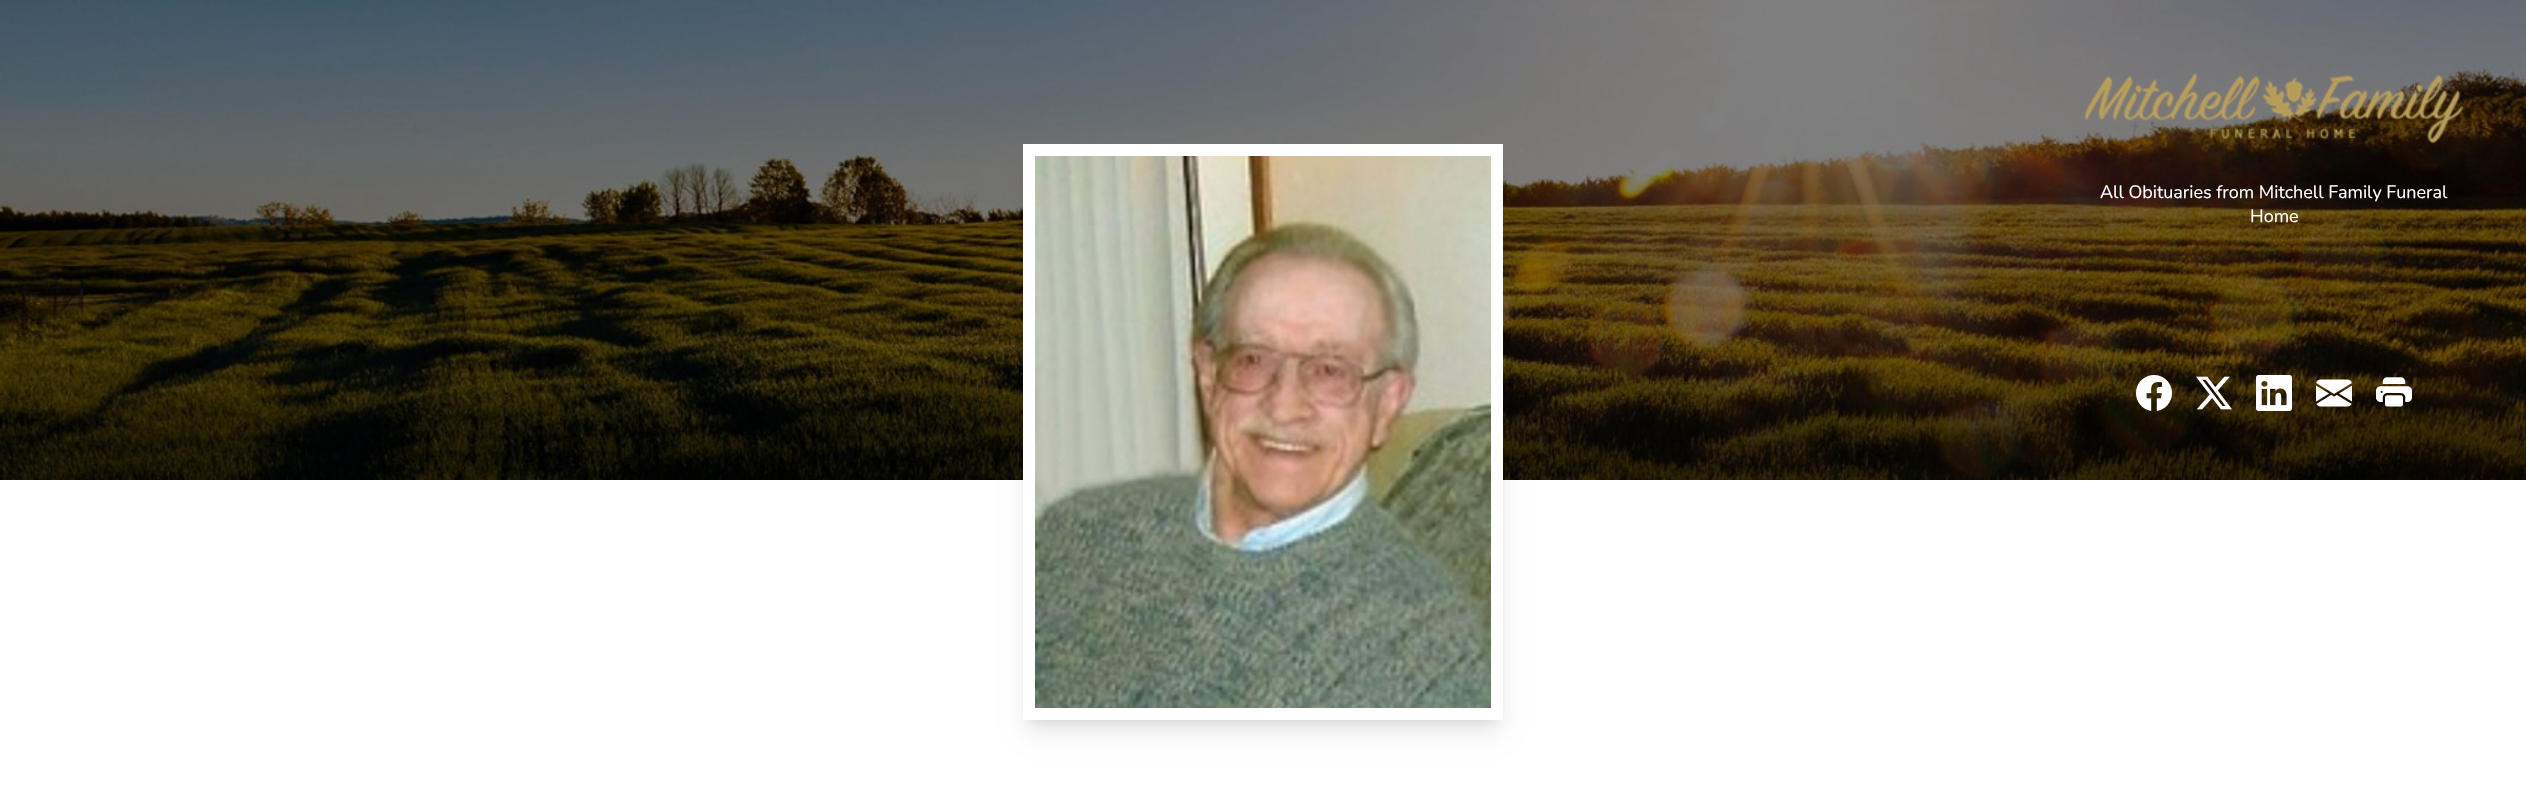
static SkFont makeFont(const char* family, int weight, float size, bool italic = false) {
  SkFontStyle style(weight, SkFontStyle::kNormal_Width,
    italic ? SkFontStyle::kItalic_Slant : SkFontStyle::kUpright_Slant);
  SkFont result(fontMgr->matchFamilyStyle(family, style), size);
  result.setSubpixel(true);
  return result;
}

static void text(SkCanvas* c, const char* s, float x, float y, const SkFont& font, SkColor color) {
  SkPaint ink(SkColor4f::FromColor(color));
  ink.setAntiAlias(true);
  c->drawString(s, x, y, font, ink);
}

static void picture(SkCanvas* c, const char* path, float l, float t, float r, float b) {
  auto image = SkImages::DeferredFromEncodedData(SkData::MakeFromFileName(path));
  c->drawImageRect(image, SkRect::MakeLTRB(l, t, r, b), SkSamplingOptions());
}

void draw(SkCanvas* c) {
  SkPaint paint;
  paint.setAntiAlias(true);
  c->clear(0xffffffff);
  picture(c, "img_02.png", 0, 0, 2526, 480);
  paint.setColor(0x1a000000);
  paint.setMaskFilter(SkMaskFilter::MakeBlur(kNormal_SkBlurStyle, 4.5f));
  c->drawRect(SkRect::MakeLTRB(1029, 156, 1497, 720), paint);
  paint.setMaskFilter(nullptr);
  paint.setMaskFilter(SkMaskFilter::MakeBlur(kNormal_SkBlurStyle, 11));
  c->drawRect(SkRect::MakeLTRB(1028, 164, 1499, 731), paint);
  paint.setMaskFilter(nullptr);
  paint.setStyle(SkPaint::kStroke_Style);
  paint.setStrokeWidth(12);
  paint.setColor(0xffffffff);
  c->drawRect(SkRect::MakeLTRB(1029, 150, 1497, 714), paint);
  picture(c, "img_01.png", 1035, 156, 1491, 708);
  picture(c, "img_03.png", 2084, 73, 2464, 144);
  SkFont face1 = makeFont("Nunito", 400, 18);
  text(c, "All Obituaries from Mitchell Family Funeral", 2100, 198, face1, 0xffffffff);
  text(c, "Home", 2250, 222, face1, 0xffffffff);
  picture(c, "img_04.png", 2136, 375, 2172, 411);
  picture(c, "img_05.png", 2196, 376, 2232, 410);
  picture(c, "img_06.png", 2256, 375, 2292, 411);
  picture(c, "img_07.png", 2316, 379, 2352, 407);
  picture(c, "img_08.png", 2376, 377, 2412, 407);
}
